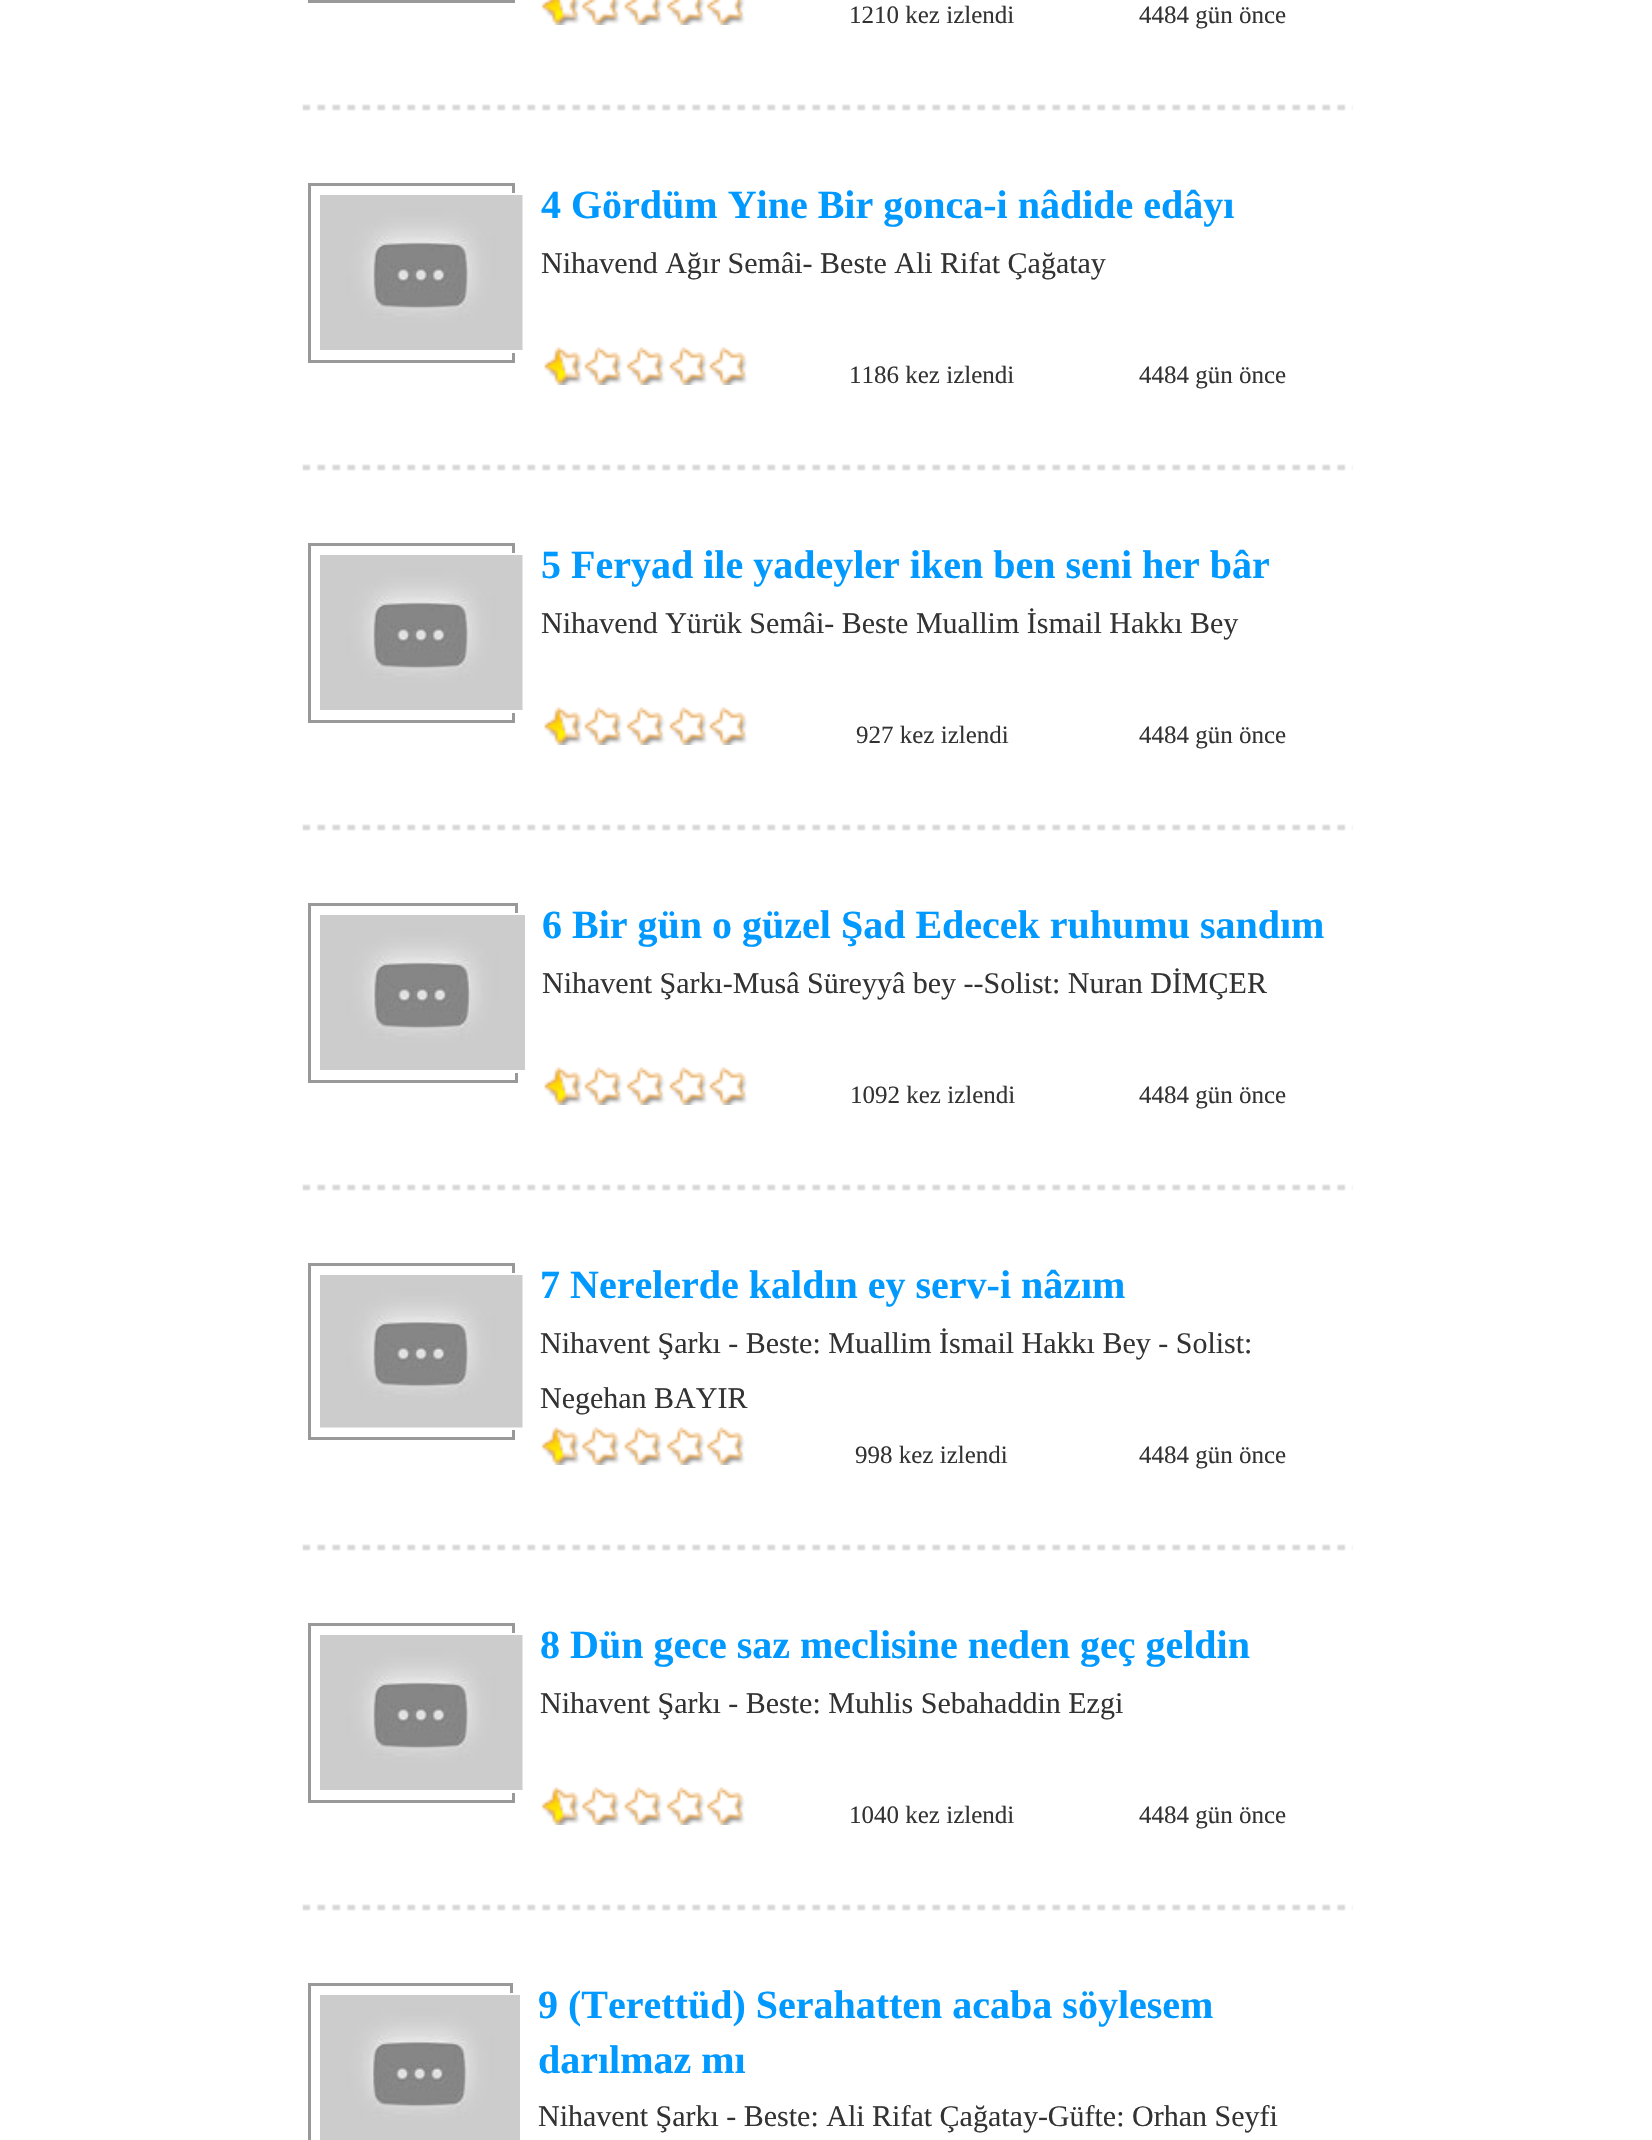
static SkFont makeFont(const char* family, int weight, float size, bool italic = false) {
  SkFontStyle style(weight, SkFontStyle::kNormal_Width,
    italic ? SkFontStyle::kItalic_Slant : SkFontStyle::kUpright_Slant);
  SkFont result(fontMgr->matchFamilyStyle(family, style), size);
  result.setSubpixel(true);
  return result;
}

static void text(SkCanvas* c, const char* s, float x, float y, const SkFont& font, SkColor color) {
  SkPaint ink(SkColor4f::FromColor(color));
  ink.setAntiAlias(true);
  c->drawString(s, x, y, font, ink);
}

static void picture(SkCanvas* c, const char* path, float l, float t, float r, float b) {
  auto image = SkImages::DeferredFromEncodedData(SkData::MakeFromFileName(path));
  c->drawImageRect(image, SkRect::MakeLTRB(l, t, r, b), SkSamplingOptions());
}

void draw(SkCanvas* c) {
  SkPaint paint;
  paint.setAntiAlias(true);
  c->clear(0xffffffff);
  paint.setStyle(SkPaint::kStroke_Style);
  paint.setStrokeWidth(3);
  paint.setColor(0xff999999);
  c->drawRect(SkRect::MakeLTRB(309.5f, -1.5f, 513.5f, 1.5f), paint);
  picture(c, "img_01.png", 541, 0, 745, 25);
  SkFont face1 = makeFont("Liberation Serif", 400, 25);
  text(c, "1210 kez izlendi", 849, 23, face1, 0xff333333);
  text(c, "4484 gün önce", 1139, 23, face1, 0xff333333);
  picture(c, "img_02.png", 302, 104, 1353, 111);
  c->drawRect(SkRect::MakeLTRB(309.5f, 184.5f, 513.5f, 361.5f), paint);
  paint.setColor(0xffffffff);
  c->drawRect(SkRect::MakeLTRB(319.5f, 194.5f, 523.5f, 351.5f), paint);
  picture(c, "img_03.png", 320, 195, 523, 350);
  SkFont face2 = makeFont("Liberation Serif", 700, 40);
  text(c, "4 Gördüm Yine Bir gonca-i nâdide edâyı", 541, 218, face2, 0xff0099ff);
  SkFont face3 = makeFont("Liberation Serif", 400, 30);
  text(c, "Nihavend Ağır Semâi- Beste Ali Rifat Çağatay", 541, 273, face3, 0xff333333);
  picture(c, "img_04.png", 544, 347, 748, 385);
  text(c, "1186 kez izlendi", 849, 383, face1, 0xff333333);
  text(c, "4484 gün önce", 1139, 383, face1, 0xff333333);
  picture(c, "img_05.png", 302, 464, 1353, 471);
  paint.setColor(0xff999999);
  c->drawRect(SkRect::MakeLTRB(309.5f, 544.5f, 513.5f, 721.5f), paint);
  paint.setColor(0xffffffff);
  c->drawRect(SkRect::MakeLTRB(319.5f, 554.5f, 523.5f, 711.5f), paint);
  picture(c, "img_06.png", 320, 555, 523, 710);
  text(c, "5 Feryad ile yadeyler iken ben seni her bâr", 541, 578, face2, 0xff0099ff);
  text(c, "Nihavend Yürük Semâi- Beste Muallim İsmail Hakkı Bey", 541, 633, face3, 0xff333333);
  picture(c, "img_07.png", 544, 707, 748, 745);
  text(c, "927 kez izlendi", 856, 743, face1, 0xff333333);
  text(c, "4484 gün önce", 1139, 743, face1, 0xff333333);
  picture(c, "img_05.png", 302, 824, 1353, 831);
  paint.setColor(0xff999999);
  c->drawRect(SkRect::MakeLTRB(309.5f, 904.5f, 516.5f, 1081.5f), paint);
  paint.setColor(0xffffffff);
  c->drawRect(SkRect::MakeLTRB(319.5f, 914.5f, 526.5f, 1071.5f), paint);
  picture(c, "img_08.png", 320, 915, 525, 1070);
  text(c, "6 Bir gün o güzel Şad Edecek ruhumu sandım", 542, 938, face2, 0xff0099ff);
  text(c, "Nihavent Şarkı-Musâ Süreyyâ bey --Solist: Nuran DİMÇER", 542, 993, face3, 0xff333333);
  picture(c, "img_04.png", 544, 1067, 748, 1105);
  text(c, "1092 kez izlendi", 850, 1103, face1, 0xff333333);
  text(c, "4484 gün önce", 1139, 1103, face1, 0xff333333);
  picture(c, "img_02.png", 302, 1184, 1353, 1191);
  paint.setColor(0xff999999);
  c->drawRect(SkRect::MakeLTRB(309.5f, 1264.5f, 513.5f, 1438.5f), paint);
  paint.setColor(0xffffffff);
  c->drawRect(SkRect::MakeLTRB(319.5f, 1274.5f, 523.5f, 1428.5f), paint);
  picture(c, "img_09.png", 320, 1275, 523, 1428);
  text(c, "7 Nerelerde kaldın ey serv-i nâzım", 540, 1298, face2, 0xff0099ff);
  text(c, "Nihavent Şarkı - Beste: Muallim İsmail Hakkı Bey - Solist:", 540, 1353, face3, 0xff333333);
  text(c, "Negehan BAYIR", 540, 1408, face3, 0xff333333);
  picture(c, "img_10.png", 541, 1427, 745, 1465);
  text(c, "998 kez izlendi", 855, 1463, face1, 0xff333333);
  text(c, "4484 gün önce", 1139, 1463, face1, 0xff333333);
  picture(c, "img_02.png", 302, 1544, 1353, 1551);
  paint.setColor(0xff999999);
  c->drawRect(SkRect::MakeLTRB(309.5f, 1624.5f, 513.5f, 1801.5f), paint);
  paint.setColor(0xffffffff);
  c->drawRect(SkRect::MakeLTRB(319.5f, 1634.5f, 523.5f, 1791.5f), paint);
  picture(c, "img_06.png", 320, 1635, 523, 1790);
  text(c, "8 Dün gece saz meclisine neden geç geldin", 540, 1658, face2, 0xff0099ff);
  text(c, "Nihavent Şarkı - Beste: Muhlis Sebahaddin Ezgi", 540, 1713, face3, 0xff333333);
  picture(c, "img_11.png", 541, 1787, 745, 1825);
  text(c, "1040 kez izlendi", 849, 1823, face1, 0xff333333);
  text(c, "4484 gün önce", 1139, 1823, face1, 0xff333333);
  picture(c, "img_12.png", 302, 1904, 1353, 1911);
  paint.setColor(0xff999999);
  c->drawRect(SkRect::MakeLTRB(309.5f, 1984.5f, 511.5f, 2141.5f), paint);
  paint.setColor(0xffffffff);
  c->drawRect(SkRect::MakeLTRB(319.5f, 1994.5f, 521.5f, 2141.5f), paint);
  picture(c, "img_13.png", 320, 1995, 520, 2140);
  text(c, "9 (Terettüd) Serahatten acaba söylesem", 538, 2018, face2, 0xff0099ff);
  text(c, "darılmaz mı", 538, 2073, face2, 0xff0099ff);
  text(c, "Nihavent Şarkı - Beste: Ali Rifat Çağatay-Güfte: Orhan Seyfi", 538, 2126, face3, 0xff333333);
}
